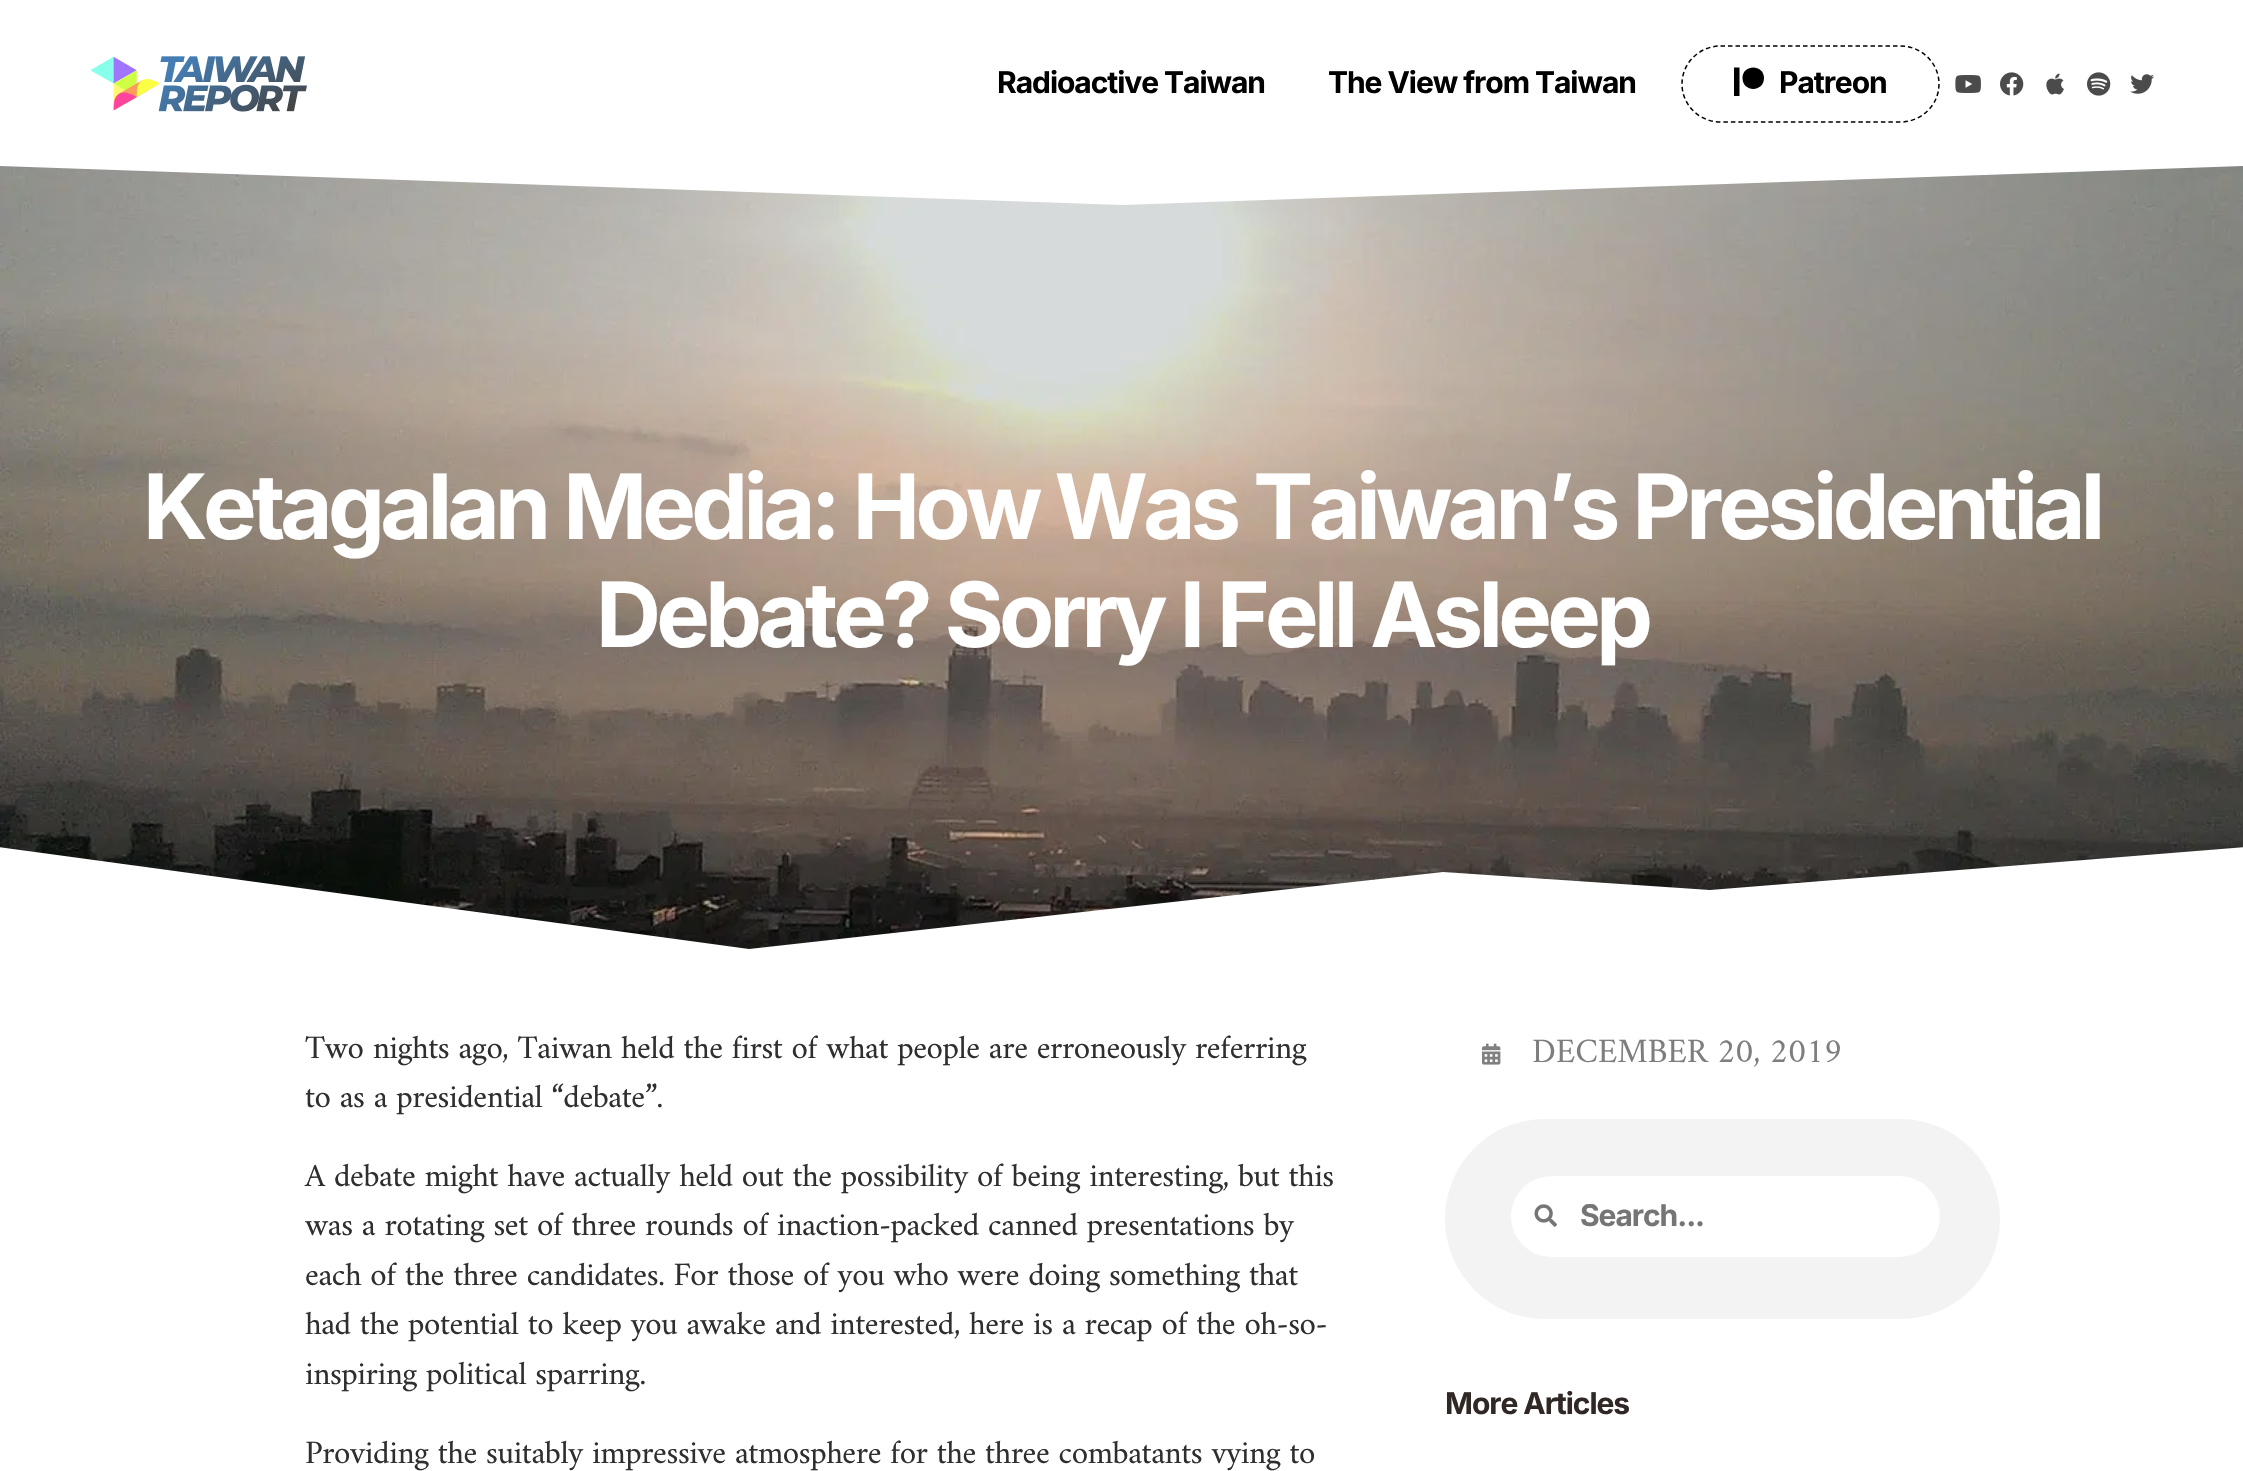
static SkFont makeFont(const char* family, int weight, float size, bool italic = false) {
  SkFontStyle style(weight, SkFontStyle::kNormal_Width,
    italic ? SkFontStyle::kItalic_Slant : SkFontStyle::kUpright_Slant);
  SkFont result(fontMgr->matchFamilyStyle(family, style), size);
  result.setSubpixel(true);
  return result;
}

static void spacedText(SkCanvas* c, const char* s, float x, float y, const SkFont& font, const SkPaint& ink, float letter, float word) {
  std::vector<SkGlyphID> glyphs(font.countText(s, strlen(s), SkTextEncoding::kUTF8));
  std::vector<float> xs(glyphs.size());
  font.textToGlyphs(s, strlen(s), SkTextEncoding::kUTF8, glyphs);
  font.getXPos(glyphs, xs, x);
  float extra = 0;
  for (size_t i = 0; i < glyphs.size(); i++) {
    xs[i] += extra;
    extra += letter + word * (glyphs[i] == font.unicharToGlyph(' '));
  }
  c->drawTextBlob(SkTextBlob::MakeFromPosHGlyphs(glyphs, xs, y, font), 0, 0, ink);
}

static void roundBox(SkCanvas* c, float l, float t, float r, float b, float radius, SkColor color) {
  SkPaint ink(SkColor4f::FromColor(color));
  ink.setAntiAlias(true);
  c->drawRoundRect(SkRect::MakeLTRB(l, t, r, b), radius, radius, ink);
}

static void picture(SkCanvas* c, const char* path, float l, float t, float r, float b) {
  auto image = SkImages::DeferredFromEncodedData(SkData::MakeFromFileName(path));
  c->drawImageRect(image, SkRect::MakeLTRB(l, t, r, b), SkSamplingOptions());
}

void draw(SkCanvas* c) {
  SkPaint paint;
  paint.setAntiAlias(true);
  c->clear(0xffffffff);
  picture(c, "img_01.png", 90, 56, 307, 112);
  SkFont face1 = makeFont("Inter", 700, 30);
  paint.setColor(0xff000000);
  spacedText(c, "Radioactive Taiwan", 997, 93, face1, paint, -1.05f, 0);
  spacedText(c, "The View from Taiwan", 1328, 93, face1, paint, -1.05f, 0);
  paint.setStyle(SkPaint::kStroke_Style);
  paint.setStrokeWidth(1.5f);
  paint.setPathEffect(SkDashPathEffect::Make({{4.5f, 3}}, 0));
  c->drawPath(SkPathBuilder().moveTo(1720.5f, 46).lineTo(1900.5f, 46).cubicTo(1921.5f, 46, 1939, 63, 1939, 84).cubicTo(1939, 105, 1921.5f, 122, 1900.5f, 122).lineTo(1720.5f, 122).cubicTo(1699.5f, 122, 1682, 105, 1682, 84).cubicTo(1682, 63, 1699.5f, 46, 1720.5f, 46).close().detach(), paint);
  paint.setPathEffect(nullptr);
  paint.setStyle(SkPaint::kFill_Style);
  c->drawPath(SkPathBuilder().moveTo(1764, 78).cubicTo(1764, 92.5f, 1742.5f, 92.5f, 1742.5f, 78).cubicTo(1742.5f, 64, 1764, 64, 1764, 78).close().moveTo(1734, 96).lineTo(1734, 67.5f).lineTo(1739.5f, 67.5f).lineTo(1739.5f, 96).close().detach(), paint);
  spacedText(c, "Patreon", 1779, 93, face1, paint, -1.05f, 0);
  picture(c, "img_02.png", 1955, 75, 1981, 93);
  picture(c, "img_03.png", 2000, 72, 2024, 96);
  picture(c, "img_04.png", 2046, 73, 2064, 95);
  picture(c, "img_05.png", 2087, 72, 2111, 96);
  picture(c, "img_06.png", 2130, 74, 2154, 94);
  picture(c, "img_07.png", 0, 166, 2243, 949);
  c->save();
  c->clipRect(SkRect::MakeLTRB(0, 165, 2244, 206));
  paint.setColor(0xffffffff);
  c->drawPath(SkPathBuilder().moveTo(1122, 205).lineTo(-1, 166).lineTo(-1, 164).lineTo(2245, 164).lineTo(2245, 166).close().detach(), paint);
  c->restore();
  SkFont face2 = makeFont("Inter", 700, 90);
  spacedText(c, "Ketagalan Media: How Was Taiwan’s Presidential", 143, 539, face2, paint, -4.65f, 0);
  spacedText(c, "Debate? Sorry I Fell Asleep", 596, 647, face2, paint, -4.65f, 0);
  c->save();
  c->clipRect(SkRect::MakeLTRB(0, 846, 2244, 954));
  c->drawPath(SkPathBuilder().moveTo(1710, 890).lineTo(1443, 872).lineTo(749, 949).lineTo(-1, 847).lineTo(-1, 956).lineTo(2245, 956).lineTo(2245, 847).detach(), paint);
  c->restore();
  SkFont face3 = makeFont("Amiri", 400, 33);
  paint.setColor(0xff2f2f2f);
  spacedText(c, "Two nights ago, Taiwan held the first of what people are erroneously referring", 305, 1058, face3, paint, -0.45f, 0);
  spacedText(c, "to as a presidential “debate”.", 305, 1107, face3, paint, -0.45f, 0);
  spacedText(c, "A debate might have actually held out the possibility of being interesting, but this", 305, 1186, face3, paint, -0.45f, 0);
  spacedText(c, "was a rotating set of three rounds of inaction-packed canned presentations by", 305, 1235, face3, paint, -0.45f, 0);
  spacedText(c, "each of the three candidates. For those of you who were doing something that", 305, 1285, face3, paint, -0.45f, 0);
  spacedText(c, "had the potential to keep you awake and interested, here is a recap of the oh-so-", 305, 1334, face3, paint, -0.45f, 0);
  spacedText(c, "inspiring political sparring.", 305, 1384, face3, paint, -0.45f, 0);
  spacedText(c, "Providing the suitably impressive atmosphere for the three combatants vying to", 305, 1463, face3, paint, -0.45f, 0);
  picture(c, "img_08.png", 1482, 1043, 1501, 1065);
  SkFont face4 = makeFont("Amiri", 400, 34.5f);
  paint.setColor(0xff7e7e7e);
  spacedText(c, "DECEMBER 20, 2019", 1532, 1062, face4, paint, -0.25f, 0);
  roundBox(c, 1445, 1119, 2000, 1319, 100, 0xfff3f3f3);
  roundBox(c, 1511, 1176, 1940, 1257, 40.5f, 0xffffffff);
  picture(c, "img_09.png", 1534, 1204, 1557, 1227);
  paint.setColor(0xff757575);
  spacedText(c, "Search...", 1580, 1226, face1, paint, -1.05f, 0);
  paint.setColor(0xff302825);
  spacedText(c, "More Articles", 1445, 1414, face1, paint, -1.05f, 0);
}
